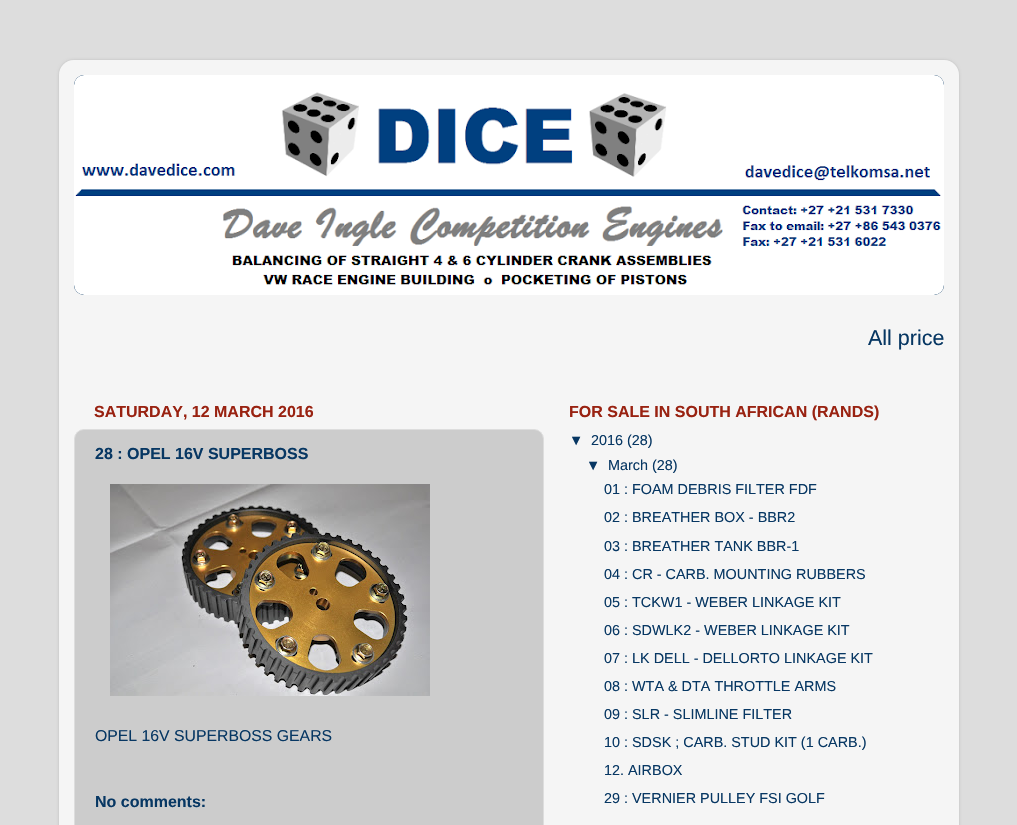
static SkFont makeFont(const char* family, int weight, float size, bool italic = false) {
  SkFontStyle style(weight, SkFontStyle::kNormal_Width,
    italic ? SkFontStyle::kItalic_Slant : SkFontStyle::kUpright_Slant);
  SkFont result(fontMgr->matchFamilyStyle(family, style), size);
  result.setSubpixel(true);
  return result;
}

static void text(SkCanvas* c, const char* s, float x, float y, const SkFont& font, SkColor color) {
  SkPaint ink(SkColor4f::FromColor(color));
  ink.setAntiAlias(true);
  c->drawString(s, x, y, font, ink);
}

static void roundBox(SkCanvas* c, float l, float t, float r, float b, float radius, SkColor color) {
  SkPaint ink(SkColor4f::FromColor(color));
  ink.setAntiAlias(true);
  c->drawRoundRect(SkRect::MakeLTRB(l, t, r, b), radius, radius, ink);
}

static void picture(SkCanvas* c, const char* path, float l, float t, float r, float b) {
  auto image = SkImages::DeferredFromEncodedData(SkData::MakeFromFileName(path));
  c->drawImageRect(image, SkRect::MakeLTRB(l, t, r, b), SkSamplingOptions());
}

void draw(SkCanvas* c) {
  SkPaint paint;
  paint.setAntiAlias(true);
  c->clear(0xffdddddd);
  c->save();
  c->clipPath(SkPathBuilder(SkPathFillType::kEvenOdd).moveTo(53, 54).lineTo(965, 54).lineTo(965, 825).lineTo(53, 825).close().moveTo(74, 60).lineTo(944, 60).cubicTo(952.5f, 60, 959, 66.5f, 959, 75).lineTo(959, 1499).cubicTo(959, 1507.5f, 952.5f, 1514, 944, 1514).lineTo(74, 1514).cubicTo(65.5f, 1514, 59, 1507.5f, 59, 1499).lineTo(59, 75).cubicTo(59, 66.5f, 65.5f, 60, 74, 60).close().detach(), true);
  paint.setColor(0x26000000);
  paint.setMaskFilter(SkMaskFilter::MakeBlur(kNormal_SkBlurStyle, 1.5f));
  c->drawRoundRect(SkRect::MakeLTRB(59, 60, 959, 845), 15, 15, paint);
  paint.setMaskFilter(nullptr);
  c->restore();
  picture(c, "img_01.png", 59, 60, 959, 825);
  roundBox(c, 74, 75, 944, 295, 10, 0xff073763);
  picture(c, "img_02.png", 74, 75, 944, 85);
  picture(c, "img_03.png", 74, 75, 944, 295);
  SkFont face1 = makeFont("Liberation Sans", 400, 21.5f);
  text(c, "All price", 868, 345, face1, 0xff073763);
  SkFont face2 = makeFont("Liberation Sans", 700, 16);
  text(c, "SATURDAY, 12 MARCH 2016", 94, 417, face2, 0xff992211);
  paint.setColor(0xffcccccc);
  c->drawRoundRect(SkRect::MakeLTRB(74.5f, 429.5f, 543.5f, 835.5f), 9.5f, 9.5f, paint);
  paint.setStyle(SkPaint::kStroke_Style);
  paint.setStrokeWidth(1);
  paint.setColor(0xffdddddd);
  c->drawRoundRect(SkRect::MakeLTRB(74.5f, 429.5f, 543.5f, 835.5f), 9.5f, 9.5f, paint);
  text(c, "28 : OPEL 16V SUPERBOSS", 95, 459, face2, 0xff073763);
  picture(c, "img_04.png", 110, 484, 430, 696);
  SkFont face3 = makeFont("Liberation Sans", 400, 15.8f);
  text(c, "OPEL 16V SUPERBOSS GEARS", 95, 741, face3, 0xff073763);
  text(c, "No comments:", 95, 807, face2, 0xff073763);
  text(c, "FOR SALE IN SOUTH AFRICAN (RANDS)", 569, 417, face2, 0xff992211);
  SkFont face4 = makeFont("Liberation Sans", 400, 14.4f);
  text(c, "▼", 569, 445, face4, 0xff073763);
  text(c, "2016 (28)", 591, 445, face4, 0xff073763);
  text(c, "▼", 586, 470, face4, 0xff073763);
  text(c, "March (28)", 608, 470, face4, 0xff073763);
  text(c, "01 : FOAM DEBRIS FILTER FDF", 604, 494, face4, 0xff073763);
  text(c, "02 : BREATHER BOX - BBR2", 604, 522, face4, 0xff073763);
  text(c, "03 : BREATHER TANK BBR-1", 604, 551, face4, 0xff073763);
  text(c, "04 : CR - CARB. MOUNTING RUBBERS", 604, 579, face4, 0xff073763);
  text(c, "05 : TCKW1 - WEBER LINKAGE KIT", 604, 607, face4, 0xff073763);
  text(c, "06 : SDWLK2 - WEBER LINKAGE KIT", 604, 635, face4, 0xff073763);
  text(c, "07 : LK DELL - DELLORTO LINKAGE KIT", 604, 663, face4, 0xff073763);
  text(c, "08 : WTA & DTA THROTTLE ARMS", 604, 691, face4, 0xff073763);
  text(c, "09 : SLR - SLIMLINE FILTER", 604, 719, face4, 0xff073763);
  text(c, "10 : SDSK ; CARB. STUD KIT (1 CARB.)", 604, 747, face4, 0xff073763);
  text(c, "12. AIRBOX", 604, 775, face4, 0xff073763);
  text(c, "29 : VERNIER PULLEY FSI GOLF", 604, 803, face4, 0xff073763);
}
